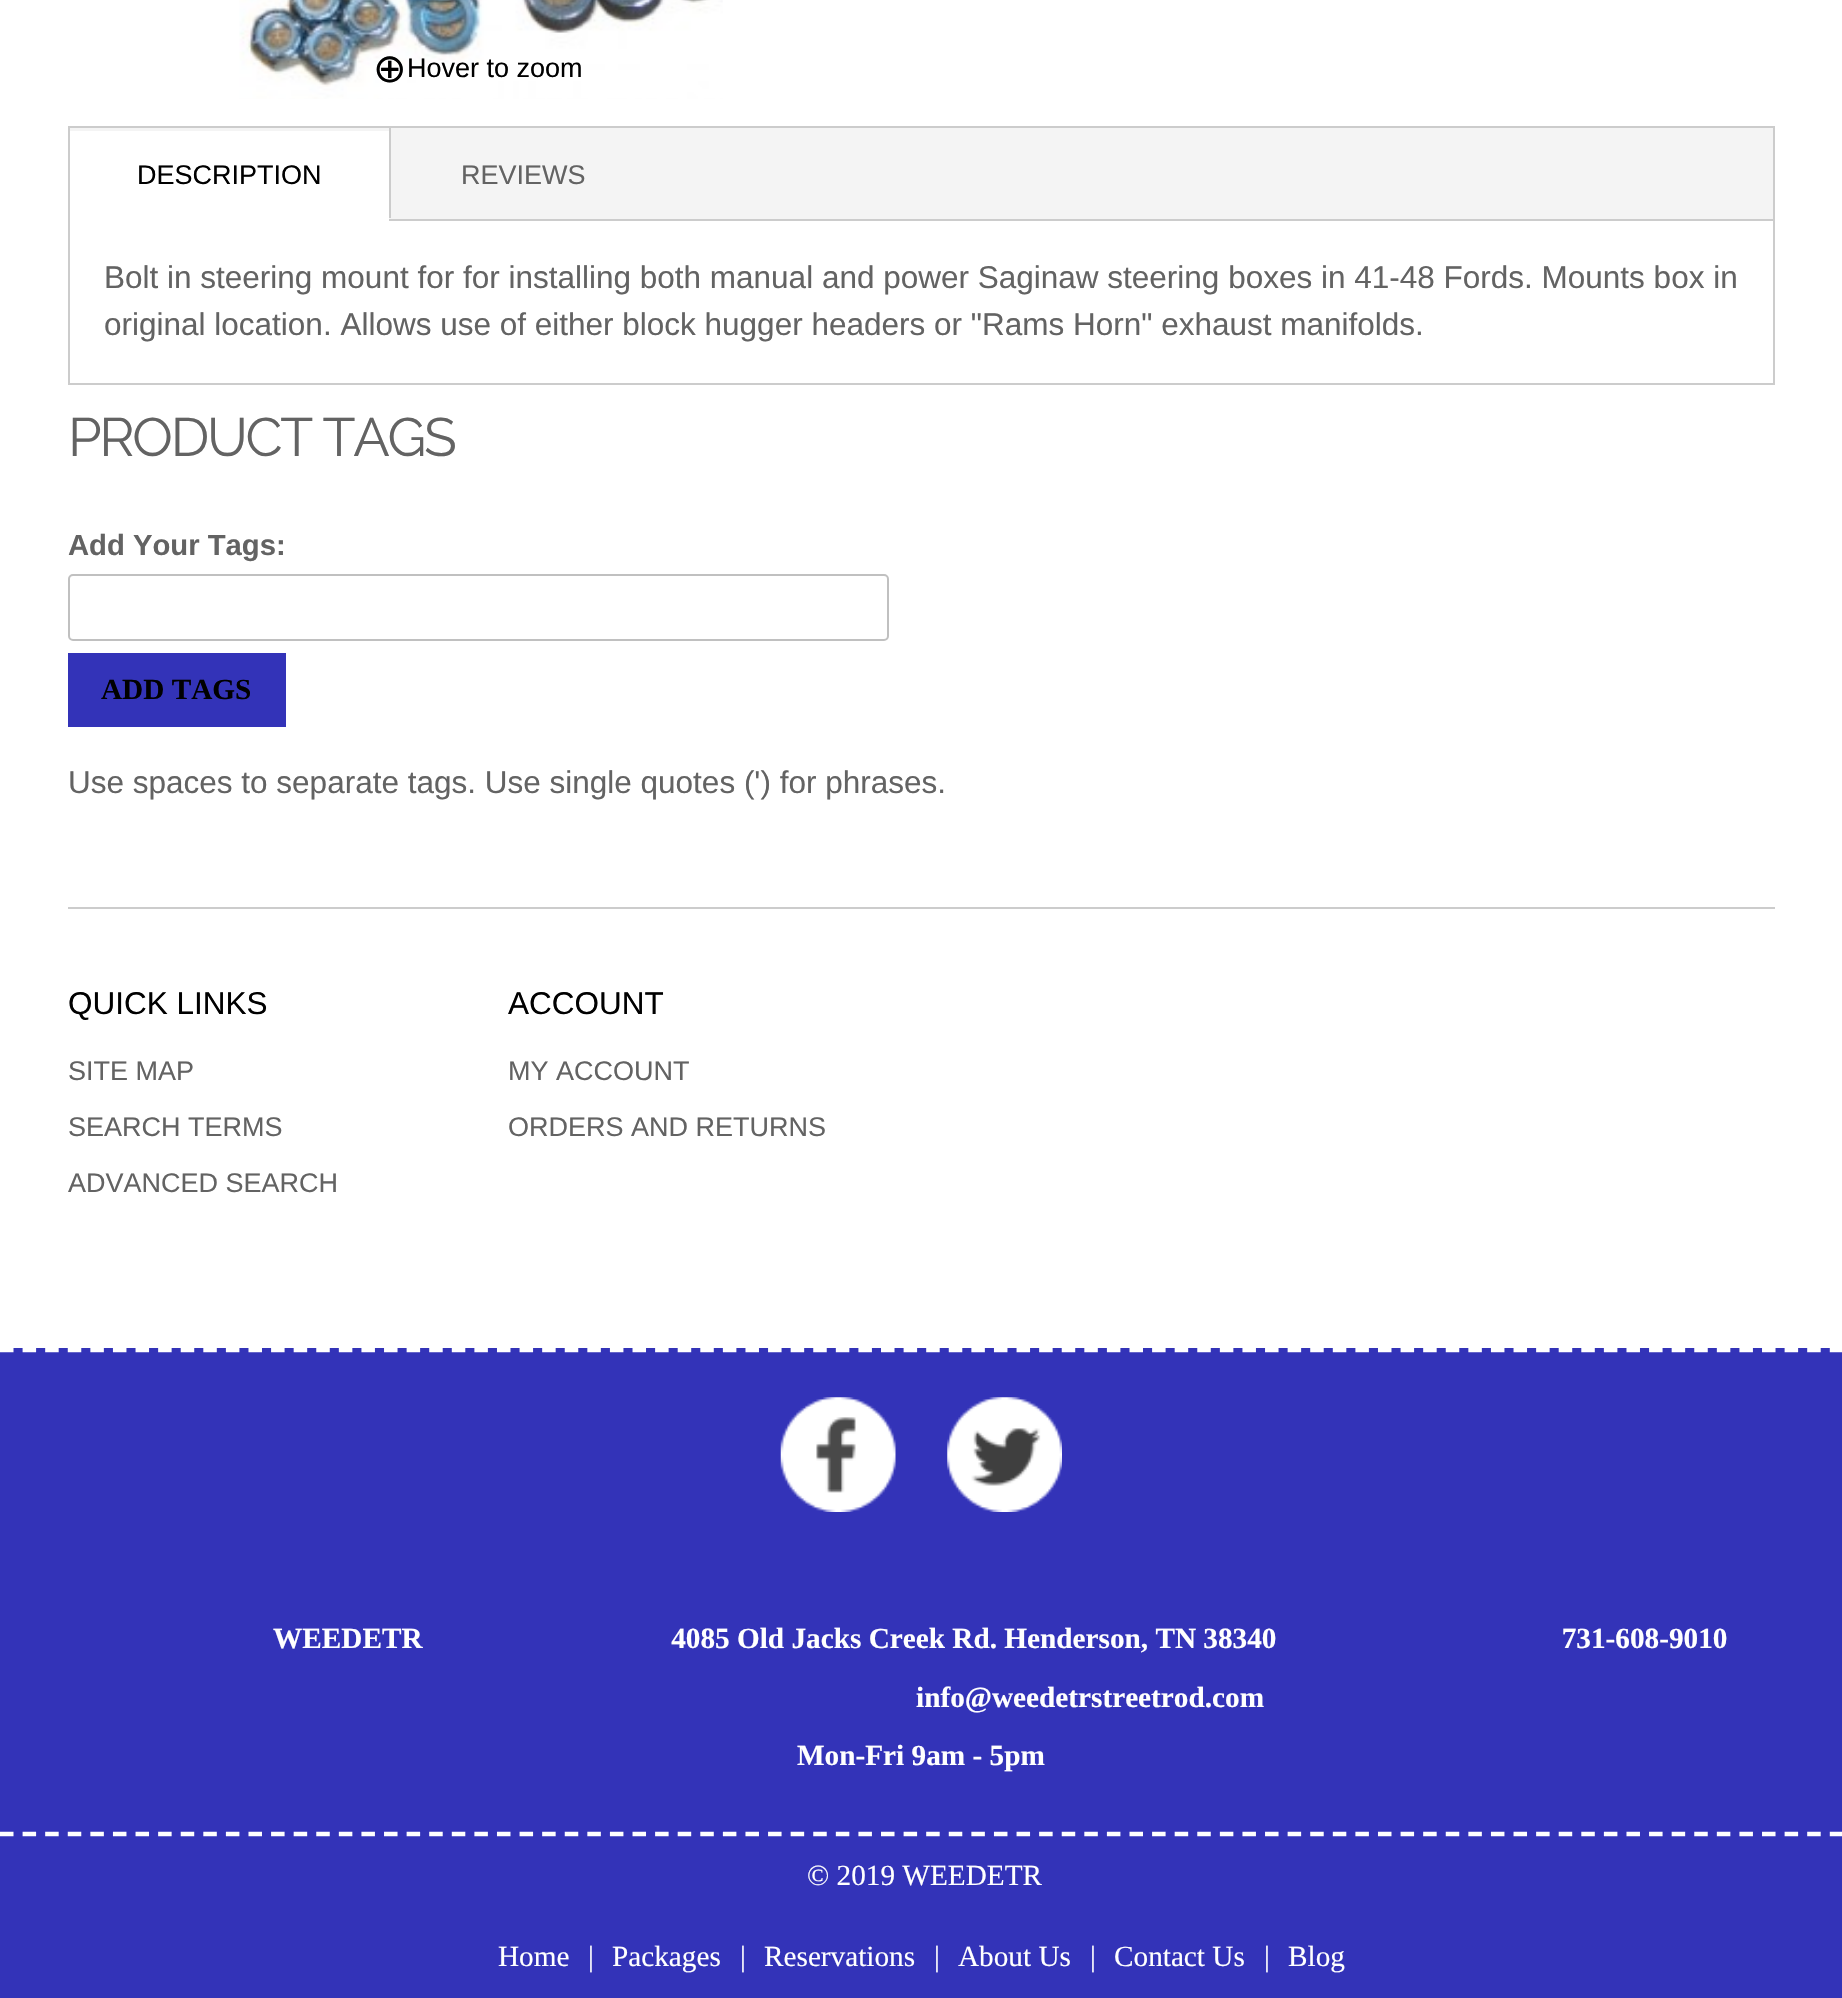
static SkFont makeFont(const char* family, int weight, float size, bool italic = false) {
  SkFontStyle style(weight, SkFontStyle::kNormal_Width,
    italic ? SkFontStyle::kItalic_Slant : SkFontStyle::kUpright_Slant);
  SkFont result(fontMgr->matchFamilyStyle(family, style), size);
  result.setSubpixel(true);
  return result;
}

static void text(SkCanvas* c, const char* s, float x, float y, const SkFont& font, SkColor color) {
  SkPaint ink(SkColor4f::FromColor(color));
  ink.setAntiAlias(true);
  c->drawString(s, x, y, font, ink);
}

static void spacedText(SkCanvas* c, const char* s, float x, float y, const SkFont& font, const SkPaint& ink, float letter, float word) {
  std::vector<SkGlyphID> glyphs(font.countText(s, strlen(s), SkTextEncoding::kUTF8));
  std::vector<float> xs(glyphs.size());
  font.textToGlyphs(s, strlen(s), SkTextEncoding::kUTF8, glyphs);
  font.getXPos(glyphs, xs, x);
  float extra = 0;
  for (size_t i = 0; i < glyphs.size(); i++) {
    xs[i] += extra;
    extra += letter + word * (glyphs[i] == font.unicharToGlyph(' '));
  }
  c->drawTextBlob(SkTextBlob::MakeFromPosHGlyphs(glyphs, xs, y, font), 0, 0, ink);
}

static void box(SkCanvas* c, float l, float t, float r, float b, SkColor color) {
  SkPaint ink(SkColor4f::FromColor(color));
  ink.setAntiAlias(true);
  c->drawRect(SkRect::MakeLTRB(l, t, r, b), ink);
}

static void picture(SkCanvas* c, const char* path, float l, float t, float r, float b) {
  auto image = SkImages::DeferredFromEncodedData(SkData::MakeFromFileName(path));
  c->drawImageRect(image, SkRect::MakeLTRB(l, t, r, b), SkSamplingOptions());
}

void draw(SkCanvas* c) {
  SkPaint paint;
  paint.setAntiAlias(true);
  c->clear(0xffffffff);
  picture(c, "img_01.png", 239, 0, 723, 99);
  SkFont face1 = makeFont("DejaVu Sans", 400, 40);
  text(c, "⊕", 373, 82, face1, 0xff000000);
  SkFont face2 = makeFont("Liberation Sans", 400, 27);
  text(c, "Hover to zoom", 407, 77, face2, 0xff000000);
  paint.setColor(0xfff4f4f4);
  c->drawRect(SkRect::MakeLTRB(69, 127, 1774, 220), paint);
  paint.setStyle(SkPaint::kStroke_Style);
  paint.setStrokeWidth(2);
  paint.setColor(0xffcccccc);
  c->drawRect(SkRect::MakeLTRB(69, 127, 1774, 220), paint);
  box(c, 389, 128, 391, 218, 0xffcccccc);
  box(c, 70, 131, 389, 221, 0xffffffff);
  text(c, "DESCRIPTION", 137, 184, face2, 0xff000000);
  text(c, "REVIEWS", 461, 184, face2, 0xff636363);
  box(c, 1773, 221, 1775, 385, 0xffcccccc);
  box(c, 68, 383, 1775, 385, 0xffcccccc);
  box(c, 68, 221, 70, 385, 0xffcccccc);
  SkFont face3 = makeFont("Liberation Sans", 400, 31.5f);
  text(c, "Bolt in steering mount for for installing both manual and power Saginaw steering boxes in 41-48 Fords. Mounts box in", 104, 288, face3, 0xff636363);
  text(c, "original location. Allows use of either block hugger headers or \"Rams Horn\" exhaust manifolds.", 104, 335, face3, 0xff636363);
  SkFont face4 = makeFont("Raleway", 400, 54);
  paint.setStyle(SkPaint::kFill_Style);
  paint.setColor(0xff636363);
  spacedText(c, "PRODUCT TAGS", 68, 456, face4, paint, -2.25f, 0);
  SkFont face5 = makeFont("Liberation Sans", 700, 29.25f);
  text(c, "Add Your Tags:", 68, 555, face5, 0xff636363);
  paint.setStyle(SkPaint::kStroke_Style);
  paint.setColor(0xffc0c0c0);
  c->drawRoundRect(SkRect::MakeLTRB(69, 575, 888, 640), 4, 4, paint);
  box(c, 68, 653, 286, 727, 0xff3333b8);
  SkFont face6 = makeFont("Liberation Serif", 700, 29.25f);
  text(c, "ADD TAGS", 101, 699, face6, 0xff000000);
  text(c, "Use spaces to separate tags. Use single quotes (') for phrases.", 68, 793, face3, 0xff636363);
  box(c, 68, 907, 1775, 909, 0xffcccccc);
  text(c, "QUICK LINKS", 68, 1014, face3, 0xff000000);
  text(c, "SITE MAP", 68, 1080, face2, 0xff636363);
  text(c, "SEARCH TERMS", 68, 1136, face2, 0xff636363);
  text(c, "ADVANCED SEARCH", 68, 1192, face2, 0xff636363);
  text(c, "ACCOUNT", 508, 1014, face3, 0xff000000);
  text(c, "MY ACCOUNT", 508, 1080, face2, 0xff636363);
  text(c, "ORDERS AND RETURNS", 508, 1136, face2, 0xff636363);
  box(c, 0, 1348, 1842, 1998, 0xff3333b8);
  paint.setStrokeWidth(4.5f);
  paint.setColor(0xffffffff);
  paint.setPathEffect(SkDashPathEffect::Make({{13.5f, 9.09f}}, 0));
  c->drawPath(SkPathBuilder().moveTo(0, 1350).lineTo(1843, 1350).detach(), paint);
  paint.setPathEffect(nullptr);
  picture(c, "img_02.png", 780, 1397, 896, 1512);
  picture(c, "img_03.png", 947, 1397, 1062, 1512);
  paint.setPathEffect(SkDashPathEffect::Make({{13.5f, 9.09f}}, 0));
  c->drawPath(SkPathBuilder().moveTo(0, 1834).lineTo(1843, 1834).detach(), paint);
  paint.setPathEffect(nullptr);
  text(c, "WEEDETR                                  4085 Old Jacks Creek Rd. Henderson, TN 38340                                       731-608-9010", 273, 1648, face6, 0xffffffff);
  text(c, "info@weedetrstreetrod.com", 916, 1707, face6, 0xffffffff);
  text(c, "Mon-Fri 9am - 5pm", 797, 1765, face6, 0xffffffff);
  SkFont face7 = makeFont("Liberation Serif", 400, 29.25f);
  text(c, "© 2019 WEEDETR", 807, 1885, face7, 0xffffffff);
  text(c, "Home", 498, 1966, face7, 0xffffffff);
  text(c, "|", 588, 1966, face7, 0xffffffff);
  text(c, "Packages", 612, 1966, face7, 0xffffffff);
  text(c, "|", 740, 1966, face7, 0xffffffff);
  text(c, "Reservations", 764, 1966, face7, 0xffffffff);
  text(c, "|", 934, 1966, face7, 0xffffffff);
  text(c, "About Us", 958, 1966, face7, 0xffffffff);
  text(c, "|", 1090, 1966, face7, 0xffffffff);
  text(c, "Contact Us", 1114, 1966, face7, 0xffffffff);
  text(c, "|", 1264, 1966, face7, 0xffffffff);
  text(c, "Blog", 1288, 1966, face7, 0xffffffff);
}
